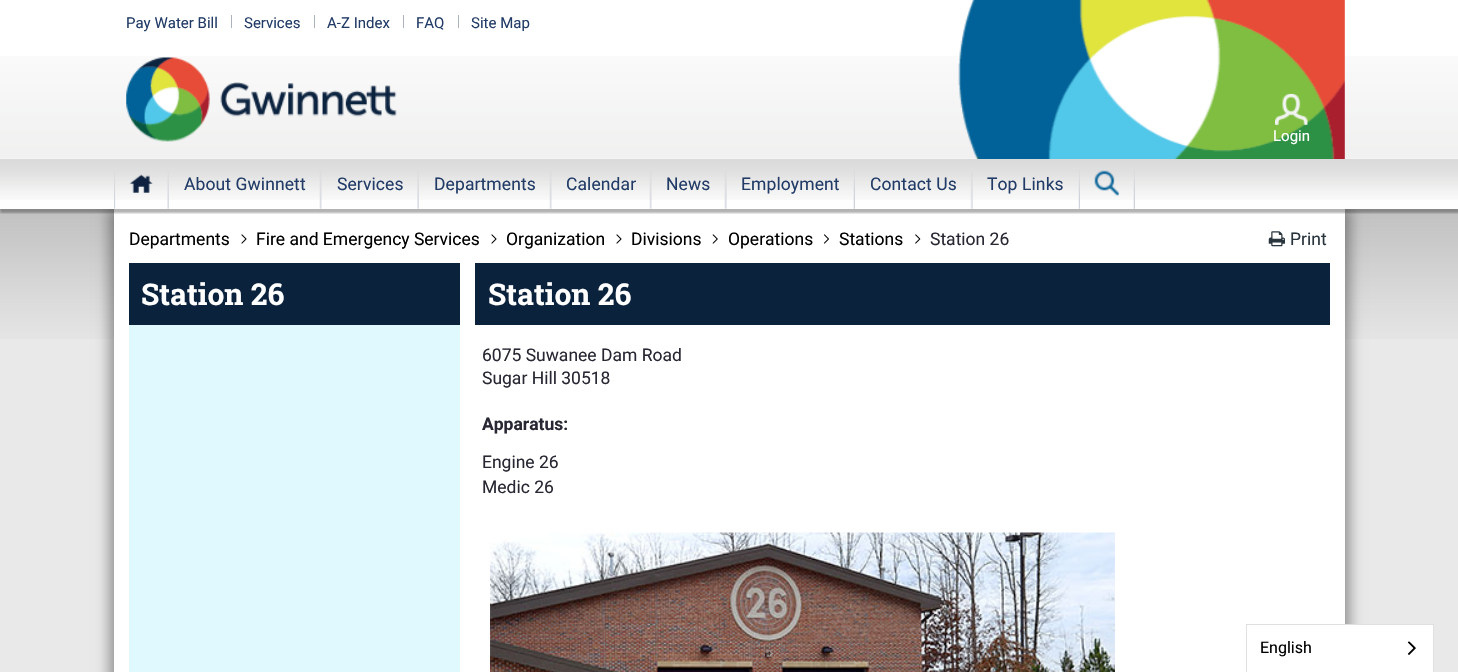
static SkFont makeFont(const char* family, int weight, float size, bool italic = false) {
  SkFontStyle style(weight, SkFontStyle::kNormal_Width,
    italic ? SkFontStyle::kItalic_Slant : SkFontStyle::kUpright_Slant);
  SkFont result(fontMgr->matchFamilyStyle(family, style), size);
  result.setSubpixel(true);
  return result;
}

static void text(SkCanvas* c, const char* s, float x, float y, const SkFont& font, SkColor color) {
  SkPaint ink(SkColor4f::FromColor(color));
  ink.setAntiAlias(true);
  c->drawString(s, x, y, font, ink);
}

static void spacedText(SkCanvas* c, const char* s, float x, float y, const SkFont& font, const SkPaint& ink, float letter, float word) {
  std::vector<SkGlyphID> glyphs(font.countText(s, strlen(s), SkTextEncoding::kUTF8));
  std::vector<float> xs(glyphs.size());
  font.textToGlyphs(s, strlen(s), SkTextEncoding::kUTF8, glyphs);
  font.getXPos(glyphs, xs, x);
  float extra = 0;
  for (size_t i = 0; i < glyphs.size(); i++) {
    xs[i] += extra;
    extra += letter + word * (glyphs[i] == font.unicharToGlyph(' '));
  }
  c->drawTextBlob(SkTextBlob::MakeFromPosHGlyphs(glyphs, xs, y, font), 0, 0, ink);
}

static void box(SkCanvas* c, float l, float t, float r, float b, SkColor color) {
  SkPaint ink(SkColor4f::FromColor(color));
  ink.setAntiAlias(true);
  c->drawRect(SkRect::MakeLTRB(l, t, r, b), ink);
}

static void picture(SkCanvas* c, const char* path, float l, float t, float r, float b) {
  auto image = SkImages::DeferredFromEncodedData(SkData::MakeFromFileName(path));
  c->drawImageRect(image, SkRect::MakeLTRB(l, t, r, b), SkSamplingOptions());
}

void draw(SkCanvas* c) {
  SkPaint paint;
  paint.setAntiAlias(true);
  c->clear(0xffffffff);
  picture(c, "img_16.png", 0, 209, 1458, 339);
  box(c, 0, 339, 1458, 672, 0xffe9e9e9);
  paint.setColor(0x4d000000);
  paint.setMaskFilter(SkMaskFilter::MakeBlur(kNormal_SkBlurStyle, 6));
  c->drawRect(SkRect::MakeLTRB(108, 209, 1339, 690), paint);
  paint.setMaskFilter(nullptr);
  paint.setMaskFilter(SkMaskFilter::MakeBlur(kNormal_SkBlurStyle, 6));
  c->drawRect(SkRect::MakeLTRB(120, 209, 1351, 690), paint);
  paint.setMaskFilter(nullptr);
  box(c, 114, 209, 1345, 672, 0xffffffff);
  c->save();
  c->clipRect(SkRect::MakeLTRB(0, 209, 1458, 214));
  paint.setMaskFilter(SkMaskFilter::MakeBlur(kNormal_SkBlurStyle, 1));
  c->drawRect(SkRect::MakeLTRB(0, 4, 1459, 213), paint);
  paint.setMaskFilter(nullptr);
  c->restore();
  picture(c, "img_01.png", 0, 56, 1458, 159);
  picture(c, "img_02.png", 958, 0, 1345, 159);
  SkFont face1 = makeFont("Roboto", 400, 15);
  text(c, "Pay Water Bill", 126, 28, face1, 0xff223c67);
  box(c, 231, 15, 232, 28, 0xffabb2be);
  text(c, "Services", 244, 28, face1, 0xff223c67);
  box(c, 314, 15, 315, 28, 0xffabb2be);
  text(c, "A-Z Index", 327, 28, face1, 0xff223c67);
  box(c, 403, 15, 404, 28, 0xffabb2be);
  text(c, "FAQ", 416, 28, face1, 0xff223c67);
  box(c, 458, 15, 459, 28, 0xffabb2be);
  text(c, "Site Map", 471, 28, face1, 0xff223c67);
  picture(c, "img_03.png", 126, 57, 397, 142);
  picture(c, "img_04.png", 1275, 93, 1308, 125);
  text(c, "Login", 1273, 141, face1, 0xffffffff);
  box(c, 0, 200, 1458, 209, 0xfffefefe);
  picture(c, "img_05.png", 0, 159, 1458, 200);
  picture(c, "img_06.png", 114, 170, 116, 209);
  picture(c, "img_07.png", 167, 171, 169, 209);
  picture(c, "img_08.png", 129, 174, 153, 193);
  picture(c, "img_09.png", 319, 171, 322, 209);
  SkFont face2 = makeFont("Roboto", 400, 17.5f);
  paint.setColor(0xff223c67);
  spacedText(c, "About Gwinnett", 184, 190, face2, paint, 0.1f, 0);
  picture(c, "img_10.png", 417, 170, 419, 209);
  spacedText(c, "Services", 337, 190, face2, paint, 0.1f, 0);
  picture(c, "img_09.png", 549, 171, 552, 209);
  spacedText(c, "Departments", 434, 190, face2, paint, 0.1f, 0);
  picture(c, "img_09.png", 649, 171, 652, 209);
  spacedText(c, "Calendar", 566, 190, face2, paint, 0.1f, 0);
  picture(c, "img_11.png", 724, 171, 727, 209);
  spacedText(c, "News", 666, 190, face2, paint, 0.1f, 0);
  picture(c, "img_12.png", 853, 170, 855, 209);
  spacedText(c, "Employment", 741, 190, face2, paint, 0.1f, 0);
  picture(c, "img_13.png", 970, 172, 973, 209);
  spacedText(c, "Contact Us", 870, 190, face2, paint, 0.1f, 0);
  picture(c, "img_14.png", 1078, 170, 1080, 209);
  spacedText(c, "Top Links", 987, 190, face2, paint, 0.1f, 0);
  picture(c, "img_12.png", 1133, 170, 1135, 209);
  picture(c, "img_15.png", 1094, 170, 1119, 196);
  text(c, "Departments", 129, 245, face2, 0xff000000);
  picture(c, "img_17.png", 241, 234, 247, 244);
  text(c, "Fire and Emergency Services", 256, 245, face2, 0xff000000);
  picture(c, "img_17.png", 491, 234, 497, 244);
  text(c, "Organization", 506, 245, face2, 0xff000000);
  picture(c, "img_17.png", 616, 234, 622, 244);
  text(c, "Divisions", 631, 245, face2, 0xff000000);
  picture(c, "img_18.png", 712, 234, 718, 244);
  text(c, "Operations", 728, 245, face2, 0xff000000);
  picture(c, "img_19.png", 823, 234, 829, 244);
  text(c, "Stations", 839, 245, face2, 0xff000000);
  picture(c, "img_20.png", 915, 234, 921, 244);
  text(c, "Station 26", 930, 245, face2, 0xff272833);
  picture(c, "img_21.png", 1268, 231, 1285, 247);
  text(c, "Print", 1290, 245, face2, 0xff29353d);
  box(c, 129, 325, 460, 672, 0xffe0f9ff);
  box(c, 129, 263, 460, 325, 0xff0b223d);
  SkFont face3 = makeFont("Roboto Slab", 700, 30);
  text(c, "Station 26", 141, 305, face3, 0xffffffff);
  box(c, 475, 263, 1330, 325, 0xff0b223d);
  text(c, "Station 26", 488, 305, face3, 0xffffffff);
  text(c, "6075 Suwanee Dam Road", 482, 361, face2, 0xff272833);
  text(c, "Sugar Hill 30518", 482, 384, face2, 0xff272833);
  SkFont face4 = makeFont("Roboto", 700, 17.5f);
  text(c, "Apparatus:", 482, 430, face4, 0xff272833);
  text(c, "Engine 26", 482, 468, face2, 0xff272833);
  text(c, "Medic 26", 482, 493, face2, 0xff272833);
  picture(c, "img_22.png", 490, 532, 1115, 672);
  box(c, 1345, 625, 1433, 672, 0xffffffff);
  paint.setStyle(SkPaint::kStroke_Style);
  paint.setStrokeWidth(1);
  paint.setColor(0xffe0e0e0);
  c->drawRect(SkRect::MakeLTRB(1246.5f, 624.5f, 1433.5f, 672.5f), paint);
  SkFont face5 = makeFont("Roboto", 400, 16);
  text(c, "English", 1260, 653, face5, 0xff000000);
  picture(c, "img_23.png", 1407, 641, 1416, 655);
}
